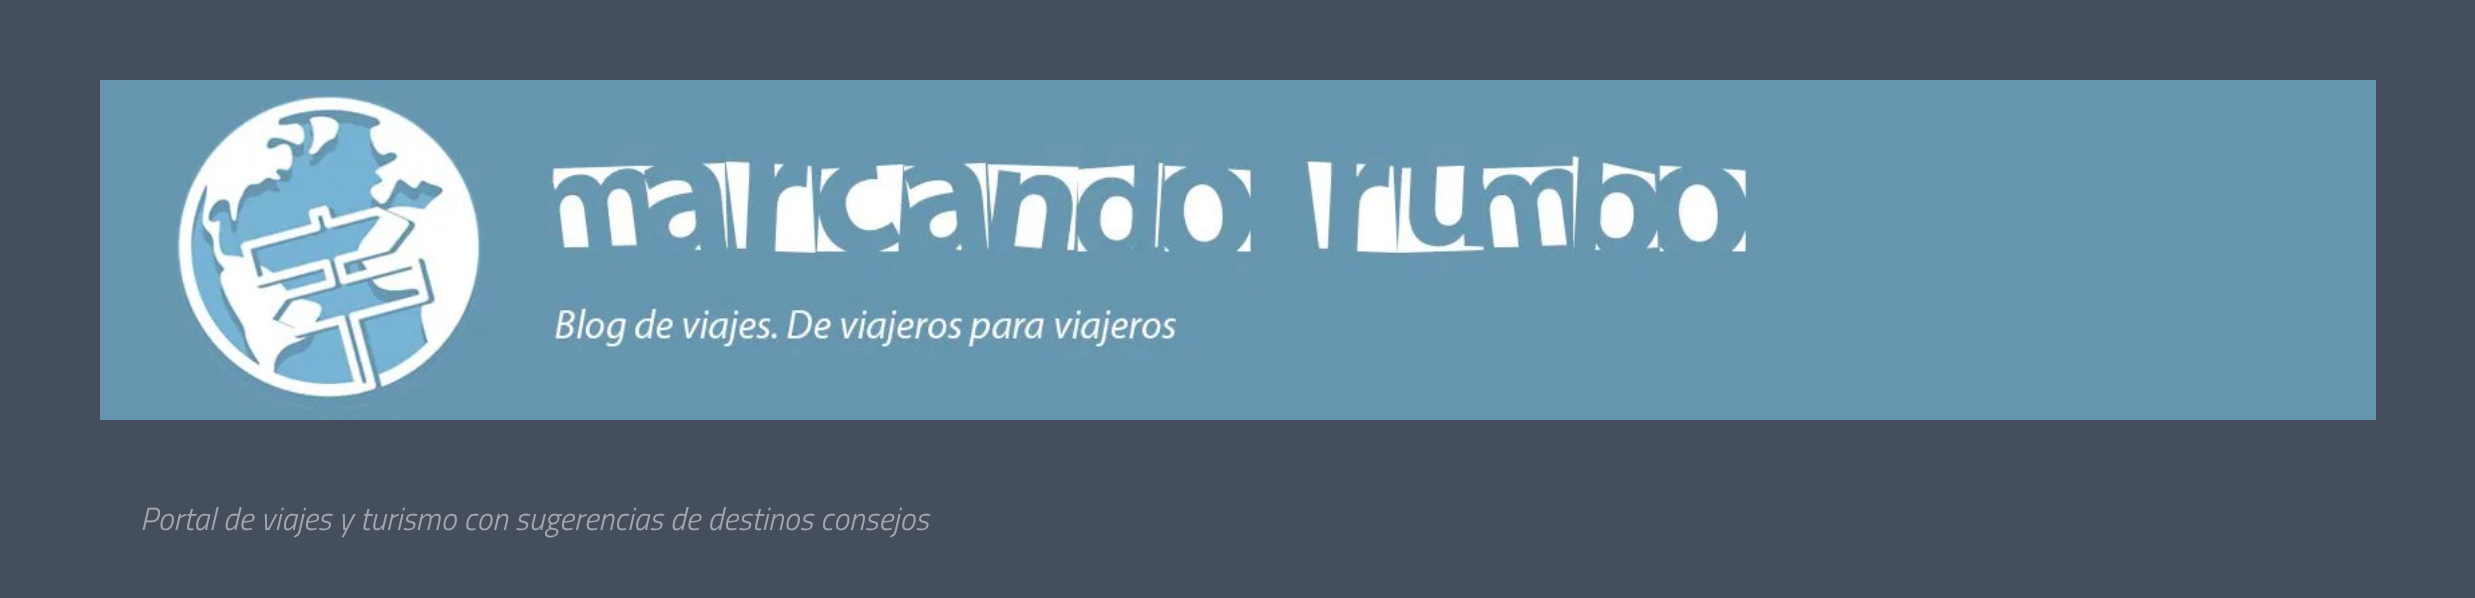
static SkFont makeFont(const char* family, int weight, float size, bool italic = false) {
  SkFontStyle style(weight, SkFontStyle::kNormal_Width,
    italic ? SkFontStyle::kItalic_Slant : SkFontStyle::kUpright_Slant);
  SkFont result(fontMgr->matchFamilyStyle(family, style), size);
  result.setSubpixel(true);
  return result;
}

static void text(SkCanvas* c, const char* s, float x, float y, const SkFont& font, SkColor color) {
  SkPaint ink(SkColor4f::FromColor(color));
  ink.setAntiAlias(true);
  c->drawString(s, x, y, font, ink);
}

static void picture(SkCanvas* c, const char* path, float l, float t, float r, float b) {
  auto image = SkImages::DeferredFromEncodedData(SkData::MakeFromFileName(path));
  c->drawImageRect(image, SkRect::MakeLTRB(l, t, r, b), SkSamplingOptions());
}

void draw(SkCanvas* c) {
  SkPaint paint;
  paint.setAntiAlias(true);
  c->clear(0xff454e5c);
  picture(c, "img_01.png", 100, 80, 2376, 420);
  SkFont face1 = makeFont("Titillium", 300, 32, true);
  text(c, "Portal de viajes y turismo con sugerencias de destinos consejos", 140, 530, face1, 0xffa2a7ae);
}
